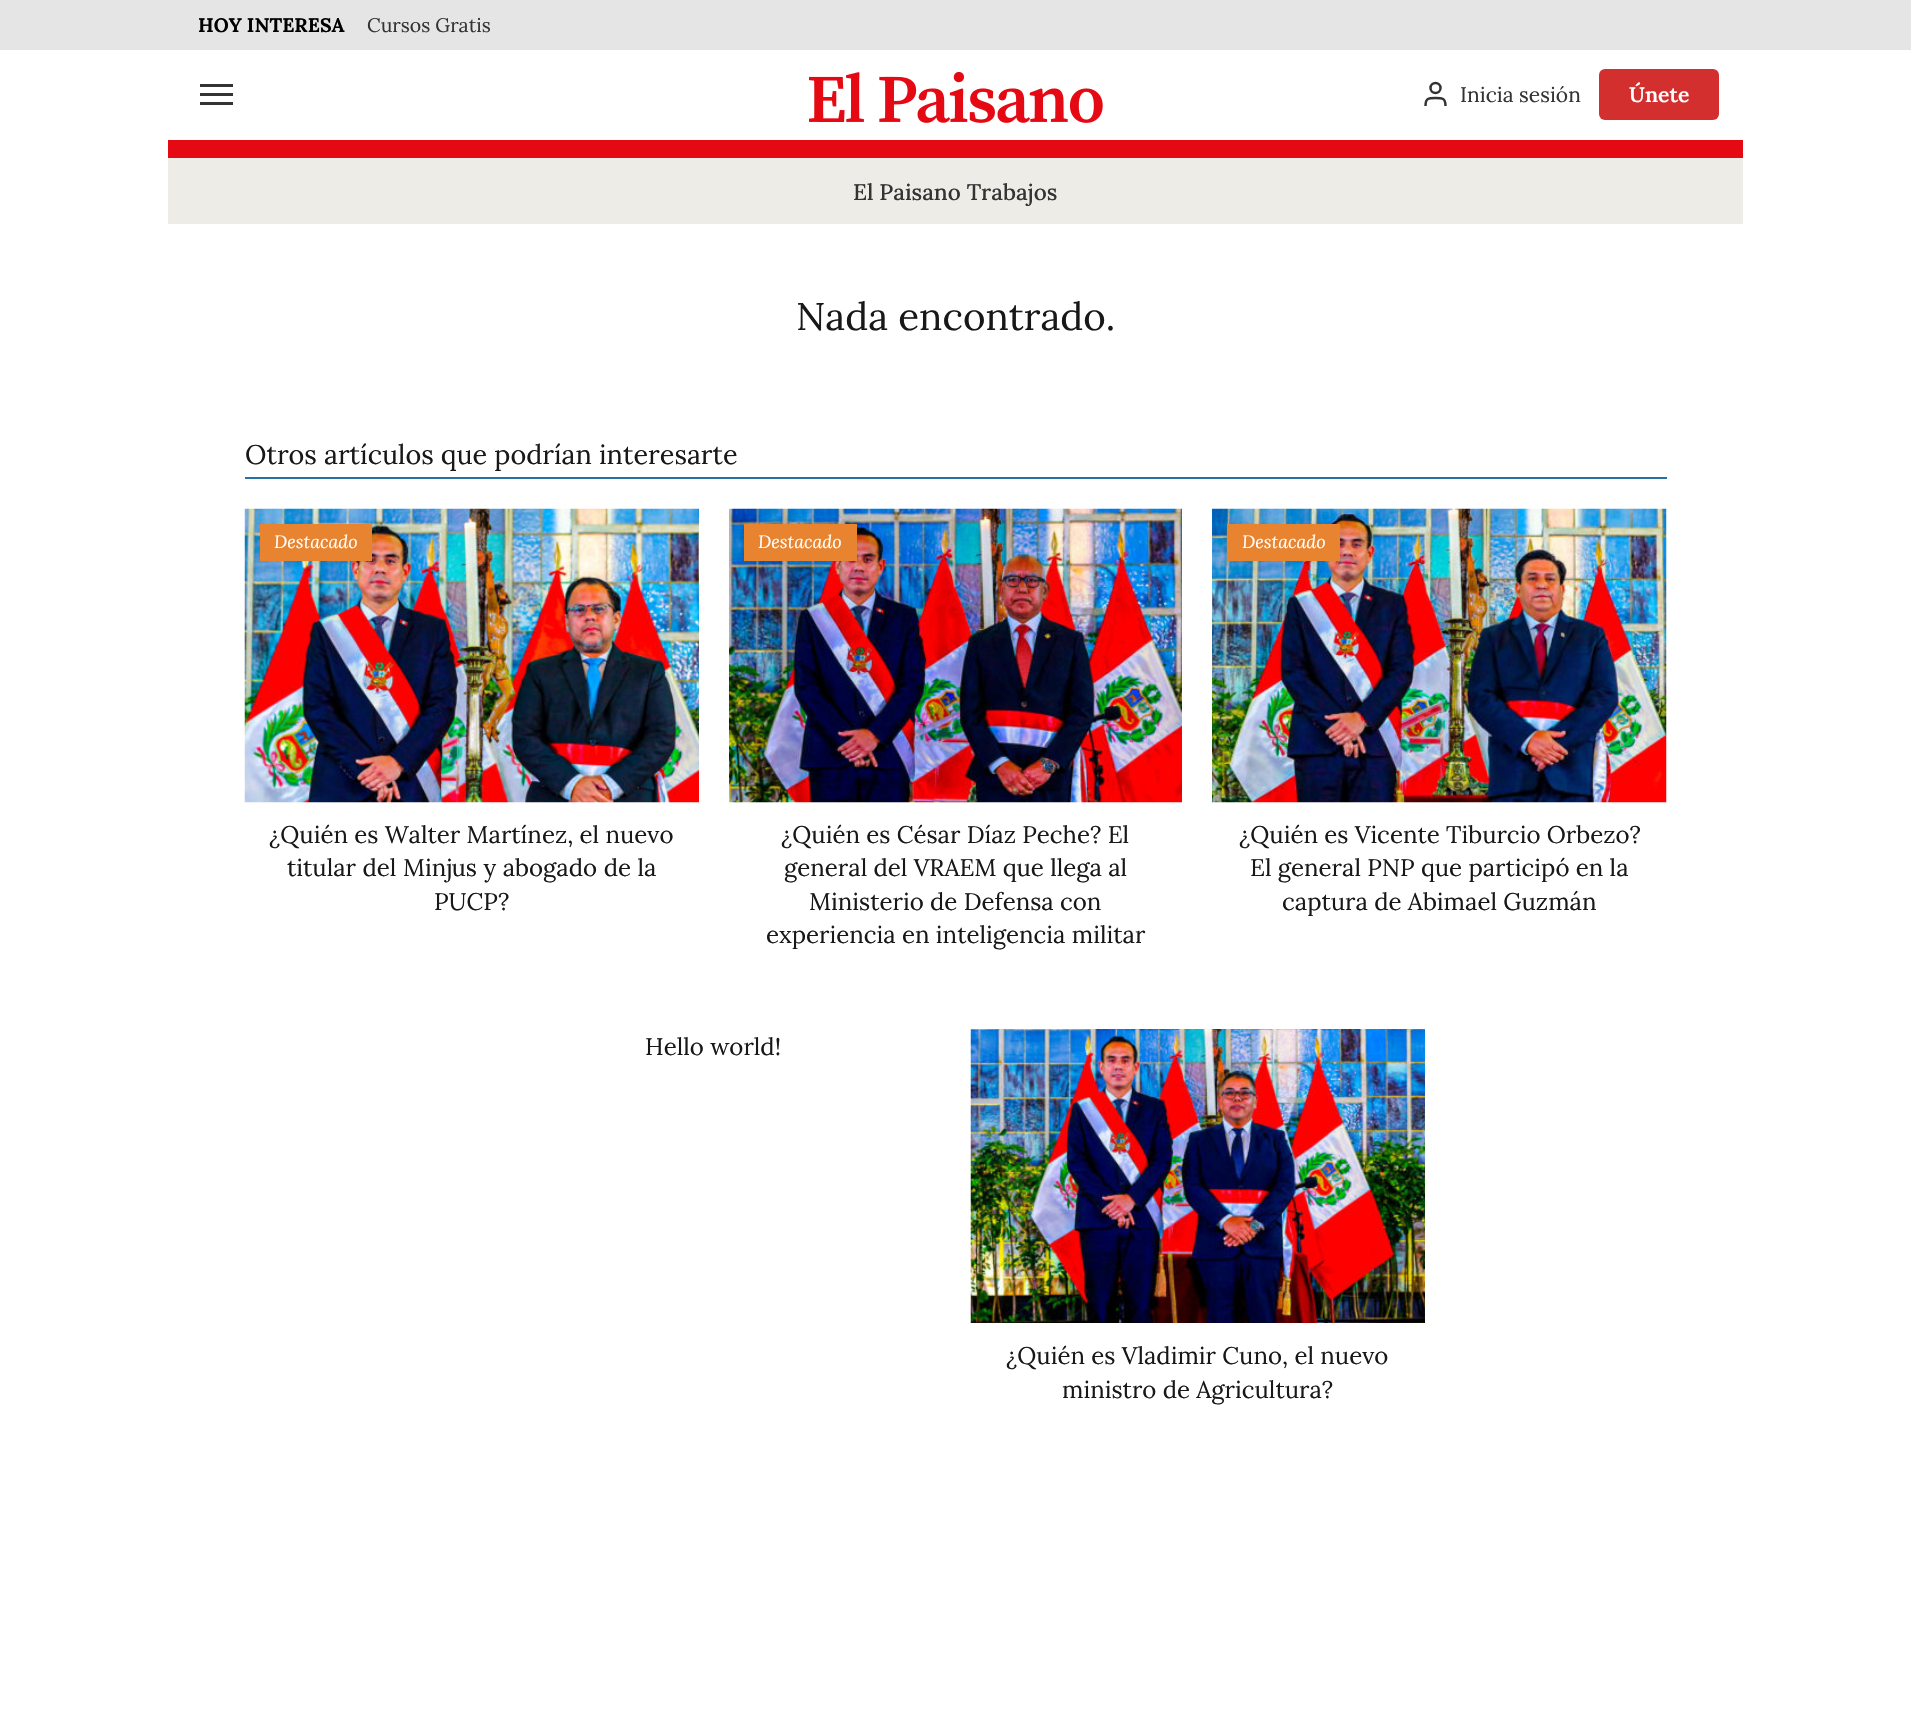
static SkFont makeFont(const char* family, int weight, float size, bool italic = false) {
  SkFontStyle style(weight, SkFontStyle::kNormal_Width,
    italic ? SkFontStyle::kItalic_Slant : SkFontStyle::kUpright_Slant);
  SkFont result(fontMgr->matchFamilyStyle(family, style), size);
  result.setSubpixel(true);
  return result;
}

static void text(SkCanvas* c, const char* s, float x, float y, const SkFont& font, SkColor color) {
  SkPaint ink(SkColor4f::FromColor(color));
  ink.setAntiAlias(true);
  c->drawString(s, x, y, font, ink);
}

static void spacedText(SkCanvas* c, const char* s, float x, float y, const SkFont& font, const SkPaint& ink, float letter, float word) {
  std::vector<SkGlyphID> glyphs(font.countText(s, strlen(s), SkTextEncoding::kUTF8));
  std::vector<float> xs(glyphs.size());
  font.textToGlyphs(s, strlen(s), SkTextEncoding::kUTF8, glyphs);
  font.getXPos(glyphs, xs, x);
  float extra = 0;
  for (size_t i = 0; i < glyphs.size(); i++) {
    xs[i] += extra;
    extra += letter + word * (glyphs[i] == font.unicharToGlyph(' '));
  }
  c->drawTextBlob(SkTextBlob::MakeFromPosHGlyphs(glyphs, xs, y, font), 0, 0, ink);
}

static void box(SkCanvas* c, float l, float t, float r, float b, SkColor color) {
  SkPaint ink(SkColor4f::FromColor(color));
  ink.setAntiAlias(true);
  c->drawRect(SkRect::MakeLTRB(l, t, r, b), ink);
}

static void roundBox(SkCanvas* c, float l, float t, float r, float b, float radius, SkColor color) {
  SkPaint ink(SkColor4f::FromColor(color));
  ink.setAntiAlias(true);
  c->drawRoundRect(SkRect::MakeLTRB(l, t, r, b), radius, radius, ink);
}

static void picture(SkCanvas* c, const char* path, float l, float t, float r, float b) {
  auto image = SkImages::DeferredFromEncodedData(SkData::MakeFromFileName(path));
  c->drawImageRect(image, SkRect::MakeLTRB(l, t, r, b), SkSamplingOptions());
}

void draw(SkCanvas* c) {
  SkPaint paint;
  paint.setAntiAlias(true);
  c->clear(0xffffffff);
  box(c, 0, 0, 1911, 50, 0xffe5e5e5);
  SkFont face1 = makeFont("Lora", 700, 19.5f);
  text(c, "HOY INTERESA", 198, 32, face1, 0xff000000);
  SkFont face2 = makeFont("Lora", 400, 19.5f);
  text(c, "Cursos Gratis", 367, 32, face2, 0xff333333);
  box(c, 168, 140, 1743, 158, 0xffe50914);
  box(c, 200, 84, 233, 87, 0xff333333);
  box(c, 200, 93, 233, 96, 0xff333333);
  box(c, 200, 102, 233, 105, 0xff333333);
  picture(c, "img_01.png", 809, 72, 1103, 123);
  paint.setStyle(SkPaint::kStroke_Style);
  paint.setStrokeWidth(2.5f);
  paint.setColor(0xff333333);
  c->drawPath(SkPathBuilder().moveTo(1445.5f, 106).cubicTo(1445.5f, 98, 1442.5f, 98, 1435.5f, 98).cubicTo(1428.5f, 98, 1425.5f, 98, 1425.5f, 106).detach(), paint);
  c->drawCircle(1435.5f, 88, 5, paint);
  SkFont face3 = makeFont("Lora", 400, 21);
  text(c, "Inicia sesión", 1460, 102, face3, 0xff333333);
  roundBox(c, 1599, 69, 1719, 120, 6, 0xffd32f2f);
  SkFont face4 = makeFont("Lora", 600, 21);
  text(c, "Únete", 1629, 102, face4, 0xffffffff);
  box(c, 168, 158, 1743, 224, 0xffeeece7);
  SkFont face5 = makeFont("Lora", 500, 22.5f);
  text(c, "El Paisano Trabajos", 853, 200, face5, 0xff333333);
  SkFont face6 = makeFont("Lora", 400, 38.5f);
  text(c, "Nada encontrado.", 796, 330, face6, 0xff181818);
  box(c, 245, 477, 1667, 479, 0xff2471a3);
  SkFont face7 = makeFont("Lora", 400, 27);
  text(c, "Otros artículos que podrían interesarte", 245, 464, face7, 0xff181818);
  picture(c, "img_02.png", 244, 508, 699, 803);
  paint.setStyle(SkPaint::kFill_Style);
  paint.setColor(0x1a000000);
  paint.setMaskFilter(SkMaskFilter::MakeBlur(kNormal_SkBlurStyle, 4));
  c->drawRect(SkRect::MakeLTRB(260, 524, 372, 561), paint);
  paint.setMaskFilter(nullptr);
  box(c, 260, 524, 372, 561, 0xffe88330);
  SkFont face8 = makeFont("Lora", 400, 18, true);
  text(c, "Destacado", 274, 548, face8, 0xffffffff);
  SkFont face9 = makeFont("Lora", 400, 24);
  text(c, "¿Quién es Walter Martínez, el nuevo", 269, 843, face9, 0xff181818);
  paint.setColor(0xff181818);
  spacedText(c, "titular del Minjus y abogado de la", 287, 876, face9, paint, 0, 0.25f);
  text(c, "PUCP?", 434, 910, face9, 0xff181818);
  picture(c, "img_03.png", 729, 508, 1182, 803);
  paint.setColor(0x1a000000);
  paint.setMaskFilter(SkMaskFilter::MakeBlur(kNormal_SkBlurStyle, 4));
  c->drawRect(SkRect::MakeLTRB(744, 524, 857, 561), paint);
  paint.setMaskFilter(nullptr);
  box(c, 744, 524, 857, 561, 0xffe88330);
  text(c, "Destacado", 758, 548, face8, 0xffffffff);
  text(c, "¿Quién es César Díaz Peche? El", 781, 843, face9, 0xff181818);
  text(c, "general del VRAEM que llega al", 784, 876, face9, 0xff181818);
  text(c, "Ministerio de Defensa con", 809, 910, face9, 0xff181818);
  text(c, "experiencia en inteligencia militar", 766, 943, face9, 0xff181818);
  picture(c, "img_04.png", 1212, 508, 1667, 803);
  paint.setMaskFilter(SkMaskFilter::MakeBlur(kNormal_SkBlurStyle, 4));
  c->drawRect(SkRect::MakeLTRB(1227, 524, 1340, 561), paint);
  paint.setMaskFilter(nullptr);
  box(c, 1227, 524, 1340, 561, 0xffe88330);
  text(c, "Destacado", 1242, 548, face8, 0xffffffff);
  text(c, "¿Quién es Vicente Tiburcio Orbezo?", 1239, 843, face9, 0xff181818);
  text(c, "El general PNP que participó en la", 1250, 876, face9, 0xff181818);
  text(c, "captura de Abimael Guzmán", 1282, 910, face9, 0xff181818);
  text(c, "Hello world!", 645, 1055, face9, 0xff181818);
  picture(c, "img_05.png", 970, 1029, 1425, 1323);
  text(c, "¿Quién es Vladimir Cuno, el nuevo", 1006, 1364, face9, 0xff181818);
  text(c, "ministro de Agricultura?", 1062, 1398, face9, 0xff181818);
}
